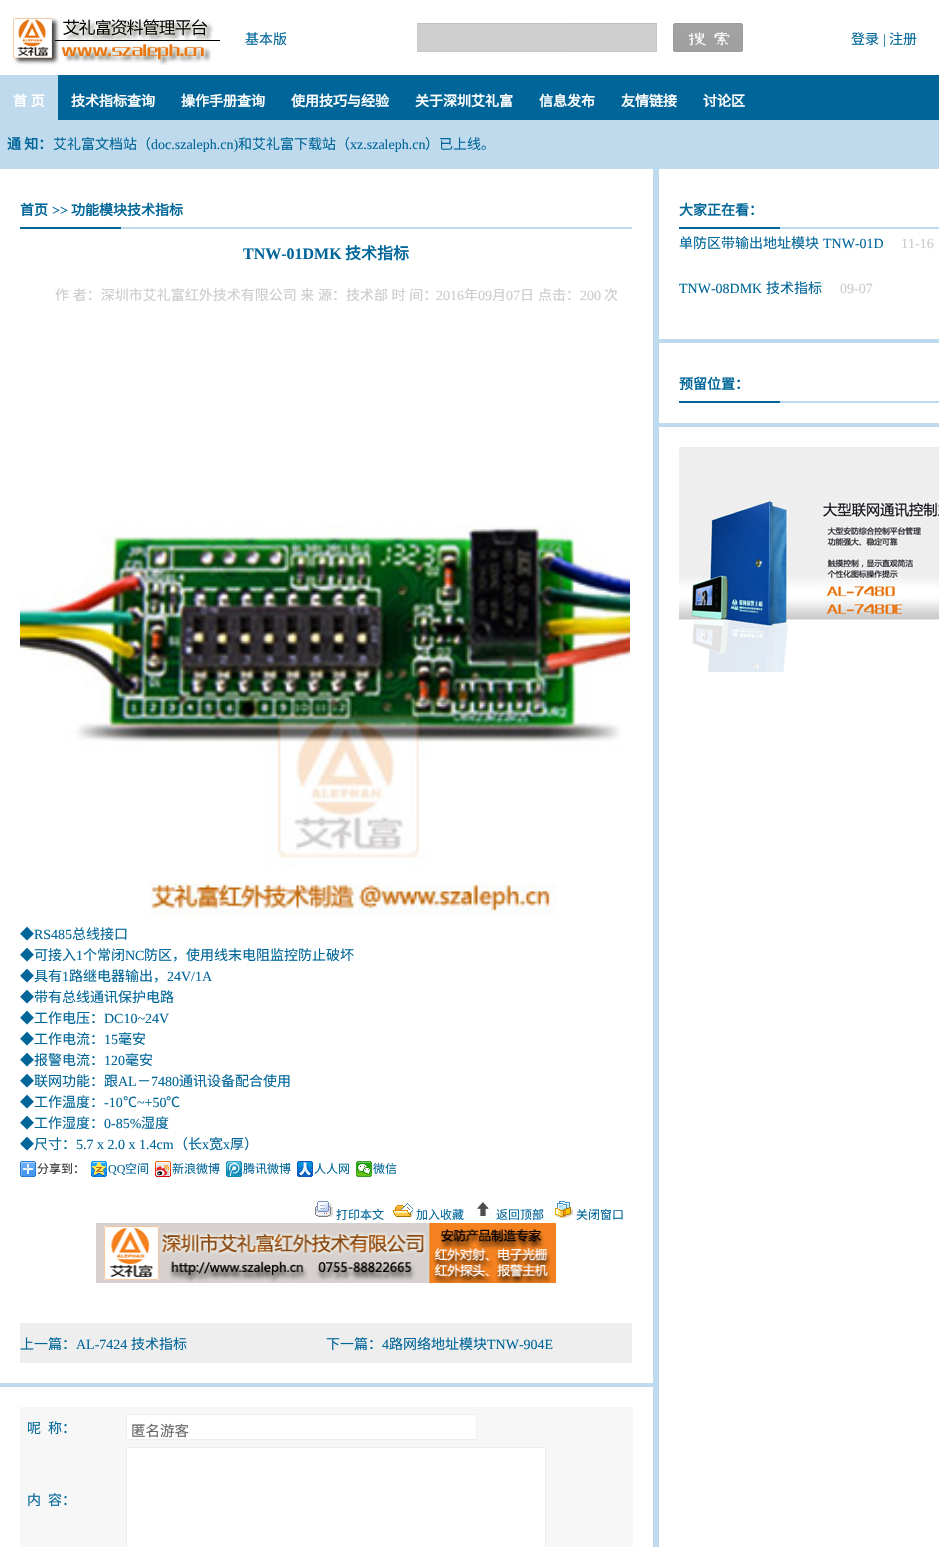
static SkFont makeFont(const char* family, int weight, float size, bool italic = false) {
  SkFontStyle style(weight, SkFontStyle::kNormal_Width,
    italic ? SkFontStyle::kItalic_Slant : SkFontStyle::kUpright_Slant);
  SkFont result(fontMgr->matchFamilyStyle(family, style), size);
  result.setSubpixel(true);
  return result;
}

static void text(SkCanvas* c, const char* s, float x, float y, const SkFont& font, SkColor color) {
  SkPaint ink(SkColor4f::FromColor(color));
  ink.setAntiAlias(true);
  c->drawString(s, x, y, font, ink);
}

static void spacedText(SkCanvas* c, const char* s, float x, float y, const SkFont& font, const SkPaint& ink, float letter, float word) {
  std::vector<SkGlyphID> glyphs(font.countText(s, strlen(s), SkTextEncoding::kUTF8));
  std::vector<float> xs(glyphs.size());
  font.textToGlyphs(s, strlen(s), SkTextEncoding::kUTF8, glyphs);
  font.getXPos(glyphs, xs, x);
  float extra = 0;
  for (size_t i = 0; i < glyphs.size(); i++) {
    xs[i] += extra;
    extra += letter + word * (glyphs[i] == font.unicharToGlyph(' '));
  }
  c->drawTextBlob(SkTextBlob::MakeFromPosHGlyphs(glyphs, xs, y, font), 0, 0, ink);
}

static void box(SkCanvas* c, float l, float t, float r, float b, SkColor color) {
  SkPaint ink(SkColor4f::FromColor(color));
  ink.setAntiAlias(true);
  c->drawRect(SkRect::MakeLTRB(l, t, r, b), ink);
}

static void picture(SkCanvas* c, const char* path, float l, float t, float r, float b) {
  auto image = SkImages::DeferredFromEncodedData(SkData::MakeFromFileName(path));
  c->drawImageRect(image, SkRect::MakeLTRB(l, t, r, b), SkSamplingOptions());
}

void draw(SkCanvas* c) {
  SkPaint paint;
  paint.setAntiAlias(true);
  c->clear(0xffc0daed);
  box(c, 0, 0, 939, 75, 0xffffffff);
  picture(c, "img_01.png", 13, 17, 220, 65);
  SkFont face1 = makeFont("Noto Sans CJK SC", 400, 14);
  text(c, "基本版", 245, 44, face1, 0xff006699);
  picture(c, "img_02.png", 417, 23, 743, 52);
  text(c, "登录", 851, 44, face1, 0xff006699);
  SkFont face2 = makeFont("Liberation Serif", 400, 14);
  text(c, "|", 883, 44, face2, 0xff006699);
  text(c, "注册", 889, 44, face1, 0xff006699);
  box(c, 58, 75, 939, 120, 0xff006699);
  SkFont face3 = makeFont("Noto Sans CJK SC", 700, 14);
  paint.setColor(0xffffffff);
  spacedText(c, "首 页", 13, 106, face3, paint, 0, 0.5f);
  text(c, "技术指标查询", 71, 106, face3, 0xffffffff);
  text(c, "操作手册查询", 181, 106, face3, 0xffffffff);
  text(c, "使用技巧与经验", 291, 106, face3, 0xffffffff);
  text(c, "关于深圳艾礼富", 415, 106, face3, 0xffffffff);
  text(c, "信息发布", 539, 106, face3, 0xffffffff);
  text(c, "友情链接", 621, 106, face3, 0xffffffff);
  text(c, "讨论区", 703, 106, face3, 0xffffffff);
  text(c, "通 知：", 7, 149, face3, 0xff006699);
  text(c, "艾礼富文档站（", 53, 149, face1, 0xff006699);
  text(c, "doc.szaleph.cn)", 151, 149, face2, 0xff006699);
  text(c, "和艾礼富下载站（", 238, 149, face1, 0xff006699);
  text(c, "xz.szaleph.cn", 350, 149, face2, 0xff006699);
  text(c, "）已上线。", 425, 149, face1, 0xff006699);
  box(c, 0, 169, 653, 1383, 0xffffffff);
  picture(c, "img_03.png", 20, 227, 632, 229);
  text(c, "首页", 20, 215, face3, 0xff006699);
  SkFont face4 = makeFont("Liberation Serif", 700, 14);
  text(c, ">>", 52, 215, face4, 0xff006699);
  text(c, "功能模块技术指标", 71, 215, face3, 0xff006699);
  SkFont face5 = makeFont("Liberation Serif", 700, 16);
  text(c, "TNW-01DMK", 243, 259, face5, 0xff006699);
  SkFont face6 = makeFont("Noto Sans CJK SC", 700, 16);
  text(c, "技术指标", 345, 259, face6, 0xff006699);
  paint.setColor(0xffcccccc);
  spacedText(c, "作 者：深圳市艾礼富红外技术有限公司 来 源：技术部 时 间：", 55, 300, face1, paint, 0, 0.5f);
  text(c, "2016", 436, 300, face2, 0xffcccccc);
  text(c, "年", 464, 300, face1, 0xffcccccc);
  text(c, "09", 478, 300, face2, 0xffcccccc);
  text(c, "月", 492, 300, face1, 0xffcccccc);
  text(c, "07", 506, 300, face2, 0xffcccccc);
  text(c, "日", 520, 300, face1, 0xffcccccc);
  text(c, "点击：", 538, 300, face1, 0xffcccccc);
  text(c, "200", 580, 300, face2, 0xffcccccc);
  text(c, "次", 604, 300, face1, 0xffcccccc);
  picture(c, "img_04.png", 20, 525, 630, 917);
  text(c, "◆", 20, 939, face1, 0xff006699);
  text(c, "RS485", 34, 939, face2, 0xff006699);
  text(c, "总线接口", 72, 939, face1, 0xff006699);
  text(c, "◆可接入", 20, 960, face1, 0xff006699);
  text(c, "1", 76, 960, face2, 0xff006699);
  text(c, "个常闭", 83, 960, face1, 0xff006699);
  text(c, "NC", 125, 960, face2, 0xff006699);
  text(c, "防区，使用线末电阻监控防止破坏", 144, 960, face1, 0xff006699);
  text(c, "◆具有", 20, 981, face1, 0xff006699);
  text(c, "1", 62, 981, face2, 0xff006699);
  text(c, "路继电器输出，", 69, 981, face1, 0xff006699);
  text(c, "24V/1A", 167, 981, face2, 0xff006699);
  text(c, "◆带有总线通讯保护电路", 20, 1002, face1, 0xff006699);
  text(c, "◆工作电压：", 20, 1023, face1, 0xff006699);
  text(c, "DC10~24V", 104, 1023, face2, 0xff006699);
  text(c, "◆工作电流：", 20, 1044, face1, 0xff006699);
  text(c, "15", 104, 1044, face2, 0xff006699);
  text(c, "毫安", 118, 1044, face1, 0xff006699);
  text(c, "◆报警电流：", 20, 1065, face1, 0xff006699);
  text(c, "120", 104, 1065, face2, 0xff006699);
  text(c, "毫安", 125, 1065, face1, 0xff006699);
  text(c, "◆联网功能：跟", 20, 1086, face1, 0xff006699);
  text(c, "AL", 118, 1086, face2, 0xff006699);
  text(c, "－", 137, 1086, face1, 0xff006699);
  text(c, "7480", 151, 1086, face2, 0xff006699);
  text(c, "通讯设备配合使用", 179, 1086, face1, 0xff006699);
  text(c, "◆工作温度：", 20, 1107, face1, 0xff006699);
  text(c, "-10", 104, 1107, face2, 0xff006699);
  text(c, "℃", 123, 1107, face1, 0xff006699);
  text(c, "~+50", 137, 1107, face2, 0xff006699);
  text(c, "℃", 166, 1107, face1, 0xff006699);
  text(c, "◆工作湿度：", 20, 1128, face1, 0xff006699);
  text(c, "0-85%", 104, 1128, face2, 0xff006699);
  text(c, "湿度", 141, 1128, face1, 0xff006699);
  text(c, "◆尺寸：", 20, 1149, face1, 0xff006699);
  text(c, "5.7 x 2.0 x 1.4cm", 76, 1149, face2, 0xff006699);
  text(c, "（长", 174, 1149, face1, 0xff006699);
  text(c, "x", 202, 1149, face2, 0xff006699);
  text(c, "宽", 209, 1149, face1, 0xff006699);
  text(c, "x", 223, 1149, face2, 0xff006699);
  text(c, "厚）", 230, 1149, face1, 0xff006699);
  picture(c, "img_05.png", 20, 1161, 36, 1177);
  SkFont face7 = makeFont("Noto Sans CJK SC", 400, 12);
  text(c, "分享到：", 37, 1173, face7, 0xff333333);
  picture(c, "img_06.png", 91, 1161, 107, 1177);
  SkFont face8 = makeFont("Liberation Serif", 400, 12);
  text(c, "QQ", 108, 1173, face8, 0xff006699);
  text(c, "空间", 125, 1173, face7, 0xff006699);
  picture(c, "img_07.png", 155, 1161, 171, 1177);
  text(c, "新浪微博", 172, 1173, face7, 0xff006699);
  picture(c, "img_08.png", 226, 1161, 242, 1177);
  text(c, "腾讯微博", 243, 1173, face7, 0xff006699);
  picture(c, "img_09.png", 297, 1161, 313, 1177);
  text(c, "人人网", 314, 1173, face7, 0xff006699);
  picture(c, "img_10.png", 356, 1161, 372, 1177);
  text(c, "微信", 373, 1173, face7, 0xff006699);
  picture(c, "img_11.png", 315, 1201, 333, 1217);
  text(c, "打印本文", 336, 1219, face7, 0xff006699);
  picture(c, "img_12.png", 393, 1203, 413, 1217);
  text(c, "加入收藏", 416, 1219, face7, 0xff006699);
  picture(c, "img_13.png", 477, 1202, 489, 1216);
  text(c, "返回顶部", 496, 1219, face7, 0xff006699);
  picture(c, "img_14.png", 555, 1201, 573, 1218);
  text(c, "关闭窗口", 576, 1219, face7, 0xff006699);
  picture(c, "img_15.png", 96, 1223, 556, 1283);
  box(c, 20, 1323, 632, 1363, 0xffeeeeee);
  text(c, "上一篇：", 20, 1349, face1, 0xff006699);
  text(c, "AL-7424", 76, 1349, face2, 0xff006699);
  text(c, "技术指标", 131, 1349, face1, 0xff006699);
  text(c, "下一篇：", 326, 1349, face1, 0xff006699);
  text(c, "4", 382, 1349, face2, 0xff006699);
  text(c, "路网络地址模块", 389, 1349, face1, 0xff006699);
  text(c, "TNW-904E", 487, 1349, face2, 0xff006699);
  paint.setColor(0xfff7f7f7);
  c->drawRect(SkRect::MakeLTRB(10, 1397, 643, 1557), paint);
  paint.setStyle(SkPaint::kStroke_Style);
  paint.setStrokeWidth(20);
  paint.setColor(0xffffffff);
  c->drawRect(SkRect::MakeLTRB(10, 1397, 643, 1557), paint);
  text(c, "呢", 27, 1433, face1, 0xff006699);
  text(c, "称：", 48, 1433, face1, 0xff006699);
  paint.setStyle(SkPaint::kFill_Style);
  c->drawRect(SkRect::MakeLTRB(126.5f, 1414.5f, 476.5f, 1439.5f), paint);
  paint.setStyle(SkPaint::kStroke_Style);
  paint.setStrokeWidth(1);
  paint.setColor(0xffeeeeee);
  c->drawRect(SkRect::MakeLTRB(126.5f, 1414.5f, 476.5f, 1439.5f), paint);
  SkFont face9 = makeFont("Noto Sans CJK SC", 400, 14.5f);
  text(c, "匿名游客", 131, 1436, face9, 0xff666666);
  text(c, "内", 27, 1505, face1, 0xff006699);
  text(c, "容：", 48, 1505, face1, 0xff006699);
  paint.setStyle(SkPaint::kFill_Style);
  paint.setColor(0xffffffff);
  c->drawRect(SkRect::MakeLTRB(126.5f, 1447.5f, 545.5f, 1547.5f), paint);
  paint.setStyle(SkPaint::kStroke_Style);
  paint.setColor(0xffeeeeee);
  c->drawRect(SkRect::MakeLTRB(126.5f, 1447.5f, 545.5f, 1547.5f), paint);
  box(c, 659, 169, 939, 1547, 0xffffffff);
  picture(c, "img_16.png", 679, 227, 939, 229);
  text(c, "大家正在看：", 679, 215, face3, 0xff006699);
  text(c, "单防区带输出地址模块", 679, 248, face1, 0xff006699);
  text(c, "TNW-01D", 823, 248, face2, 0xff006699);
  text(c, "11-16", 901, 248, face2, 0xffcccccc);
  text(c, "TNW-08DMK", 679, 293, face2, 0xff006699);
  text(c, "技术指标", 766, 293, face1, 0xff006699);
  text(c, "09-07", 840, 293, face2, 0xffcccccc);
  box(c, 659, 339, 939, 343, 0xffc0daed);
  picture(c, "img_16.png", 679, 401, 939, 403);
  text(c, "预留位置：", 679, 389, face3, 0xff006699);
  box(c, 659, 423, 939, 427, 0xffc0daed);
  picture(c, "img_17.png", 679, 447, 939, 672);
}
